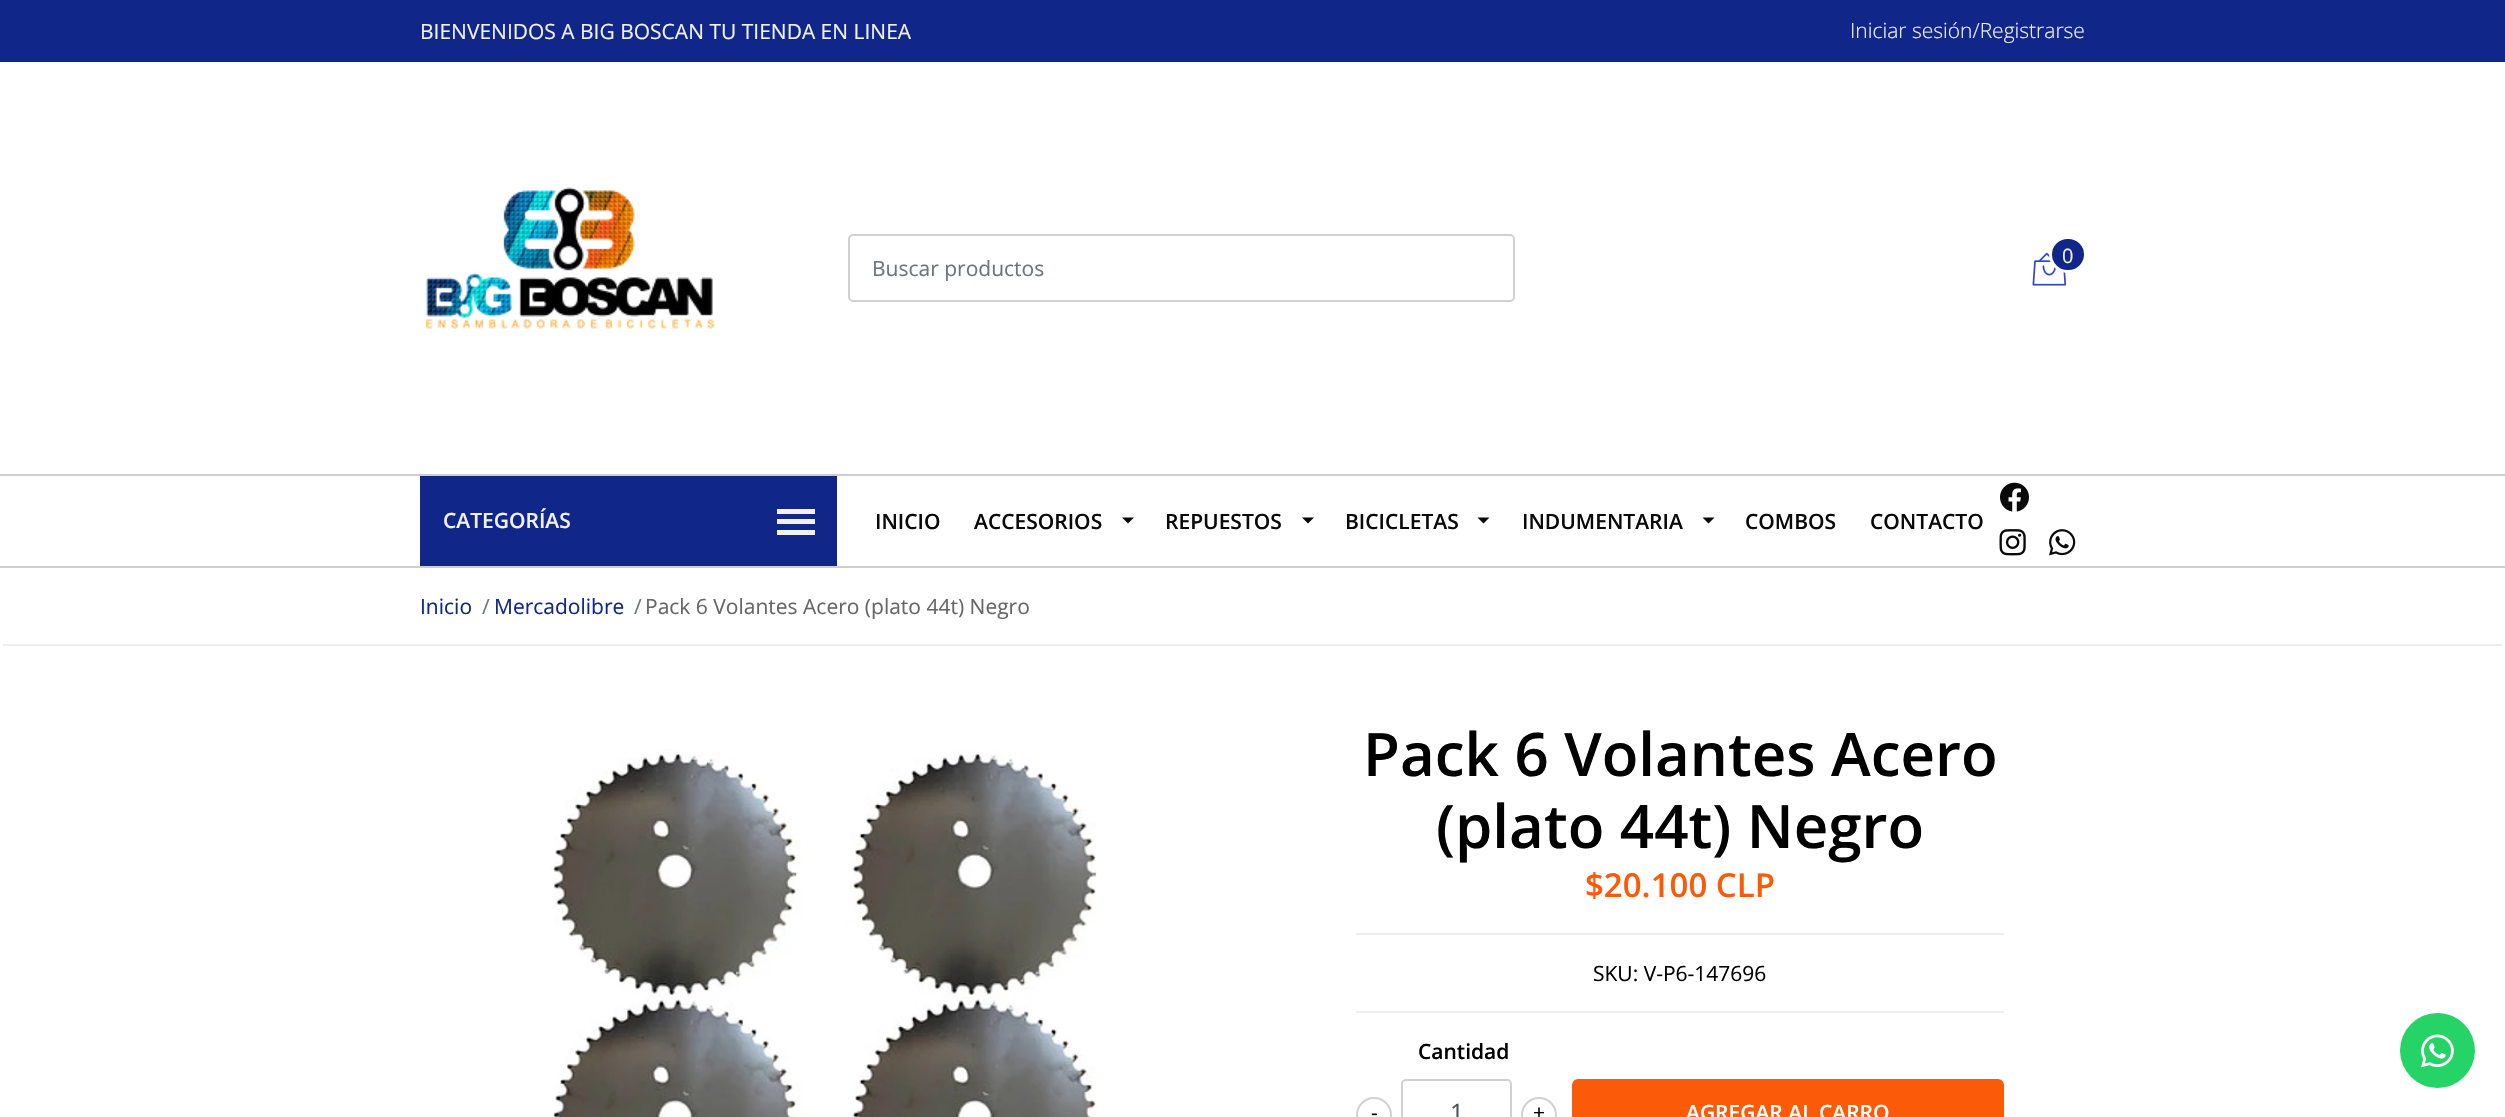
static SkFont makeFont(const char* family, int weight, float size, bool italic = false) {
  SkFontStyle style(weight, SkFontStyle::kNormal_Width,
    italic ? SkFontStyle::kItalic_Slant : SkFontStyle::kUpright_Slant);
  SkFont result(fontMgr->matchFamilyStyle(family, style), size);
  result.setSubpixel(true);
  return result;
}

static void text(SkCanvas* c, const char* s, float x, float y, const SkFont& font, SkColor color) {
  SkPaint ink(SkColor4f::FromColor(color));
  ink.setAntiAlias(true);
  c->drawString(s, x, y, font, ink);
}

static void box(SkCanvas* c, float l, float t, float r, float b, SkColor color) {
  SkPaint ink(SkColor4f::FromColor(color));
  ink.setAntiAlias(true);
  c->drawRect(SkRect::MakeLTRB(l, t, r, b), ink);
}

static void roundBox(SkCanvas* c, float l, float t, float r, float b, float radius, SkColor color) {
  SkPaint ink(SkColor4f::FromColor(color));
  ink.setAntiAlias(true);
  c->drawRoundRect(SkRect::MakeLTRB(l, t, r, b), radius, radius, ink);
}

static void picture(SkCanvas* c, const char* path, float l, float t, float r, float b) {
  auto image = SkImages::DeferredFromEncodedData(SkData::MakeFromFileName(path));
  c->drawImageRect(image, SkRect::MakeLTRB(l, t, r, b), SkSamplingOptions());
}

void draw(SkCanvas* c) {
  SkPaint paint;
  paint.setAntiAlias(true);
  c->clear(0xffffffff);
  box(c, 0, 0, 2505, 62, 0xff102789);
  SkFont face1 = makeFont("Open Sans", 400, 21);
  text(c, "BIENVENIDOS A BIG BOSCAN TU TIENDA EN LINEA", 420, 39, face1, 0xfff1f1f1);
  SkFont face2 = makeFont("Open Sans", 300, 21);
  text(c, "Iniciar sesión/Registrarse", 1850, 38, face2, 0xfff1f1f1);
  picture(c, "img_01.png", 425, 187, 715, 329);
  picture(c, "img_02.png", 2032, 252, 2067, 286);
  paint.setColor(0xff102789);
  c->drawRoundRect(SkRect::MakeLTRB(2050.5f, 237.5f, 2085.5f, 271.5f), 17, 17, paint);
  paint.setStyle(SkPaint::kStroke_Style);
  paint.setStrokeWidth(3);
  paint.setColor(0xffffffff);
  c->drawRoundRect(SkRect::MakeLTRB(2050.5f, 237.5f, 2085.5f, 271.5f), 17, 17, paint);
  SkFont face3 = makeFont("Open Sans", 400, 20);
  text(c, "0", 2062, 263, face3, 0xfff1f1f1);
  paint.setStrokeWidth(2);
  paint.setColor(0xffd1d1d1);
  c->drawRoundRect(SkRect::MakeLTRB(849, 235, 1514, 301), 4, 4, paint);
  text(c, "Buscar productos", 872, 276, face1, 0xff6c757d);
  box(c, 0, 474, 2505, 476, 0xffcecece);
  box(c, 0, 566, 2505, 568, 0xffcecece);
  box(c, 420, 476, 837, 566, 0xff102789);
  SkFont face4 = makeFont("Open Sans", 600, 21);
  text(c, "CATEGORÍAS", 443, 528, face4, 0xfff1f1f1);
  box(c, 777, 509, 815, 514, 0xfff1f1f1);
  box(c, 777, 519, 815, 524, 0xfff1f1f1);
  box(c, 777, 530, 815, 535, 0xfff1f1f1);
  text(c, "INICIO", 875, 529, face4, 0xff090909);
  text(c, "ACCESORIOS", 974, 529, face4, 0xff090909);
  paint.setStyle(SkPaint::kFill_Style);
  paint.setColor(0xff090909);
  c->drawPath(SkPathBuilder().moveTo(1122, 517.5f).lineTo(1134, 517.5f).lineTo(1128, 523.5f).close().detach(), paint);
  text(c, "REPUESTOS", 1165, 529, face4, 0xff090909);
  c->drawPath(SkPathBuilder().moveTo(1302, 517.5f).lineTo(1314, 517.5f).lineTo(1308, 523.5f).close().detach(), paint);
  text(c, "BICICLETAS", 1345, 529, face4, 0xff090909);
  c->drawPath(SkPathBuilder().moveTo(1477.5f, 517.5f).lineTo(1489.5f, 517.5f).lineTo(1483.5f, 523.5f).close().detach(), paint);
  text(c, "INDUMENTARIA", 1522, 529, face4, 0xff090909);
  c->drawPath(SkPathBuilder().moveTo(1702.5f, 517.5f).lineTo(1714.5f, 517.5f).lineTo(1708.5f, 523.5f).close().detach(), paint);
  text(c, "COMBOS", 1745, 529, face4, 0xff090909);
  text(c, "CONTACTO", 1870, 529, face4, 0xff090909);
  picture(c, "img_03.png", 2000, 482, 2029, 512);
  picture(c, "img_04.png", 1999, 529, 2026, 556);
  picture(c, "img_05.png", 2049, 529, 2076, 556);
  box(c, 3, 644, 2502, 646, 0xffeeeeee);
  text(c, "Inicio", 420, 614, face1, 0xff102789);
  text(c, "/", 482, 614, face1, 0xff6c757d);
  text(c, "Mercadolibre", 494, 614, face1, 0xff102789);
  text(c, "/", 634, 614, face1, 0xff6c757d);
  text(c, "Pack 6 Volantes Acero (plato 44t) Negro", 645, 614, face1, 0xff666666);
  picture(c, "img_06.png", 550, 749, 1097, 1117);
  box(c, 1356, 933, 2004, 935, 0xffeeeeee);
  SkFont face5 = makeFont("Open Sans", 600, 60);
  text(c, "Pack 6 Volantes Acero", 1363, 776, face5, 0xff000000);
  text(c, "(plato 44t) Negro", 1436, 848, face5, 0xff000000);
  SkFont face6 = makeFont("Open Sans", 600, 33);
  text(c, "$20.100 CLP", 1585, 897, face6, 0xfffb5a08);
  box(c, 1356, 1011, 2004, 1013, 0xffeeeeee);
  text(c, "SKU: V-P6-147696", 1593, 981, face1, 0xff000000);
  text(c, "Cantidad", 1418, 1059, face4, 0xff000000);
  paint.setStyle(SkPaint::kStroke_Style);
  paint.setColor(0xffd1d1d1);
  c->drawRoundRect(SkRect::MakeLTRB(1402, 1080, 1511, 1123), 4, 4, paint);
  SkFont face7 = makeFont("Open Sans", 400, 24);
  text(c, "1", 1450, 1121, face7, 0xff495057);
  c->drawCircle(1374, 1115, 17, paint);
  text(c, "-", 1371, 1120, face1, 0xff000000);
  c->drawCircle(1539, 1115, 17, paint);
  text(c, "+", 1533, 1120, face1, 0xff000000);
  roundBox(c, 1572, 1079, 2004, 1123, 6, 0xfffb5a08);
  text(c, "AGREGAR AL CARRO", 1686, 1120, face4, 0xffffffff);
  paint.setStyle(SkPaint::kFill_Style);
  paint.setColor(0xff25d366);
  c->drawCircle(2437.5f, 1050.5f, 37.5f, paint);
  picture(c, "img_07.png", 2421, 1034, 2454, 1068);
}
